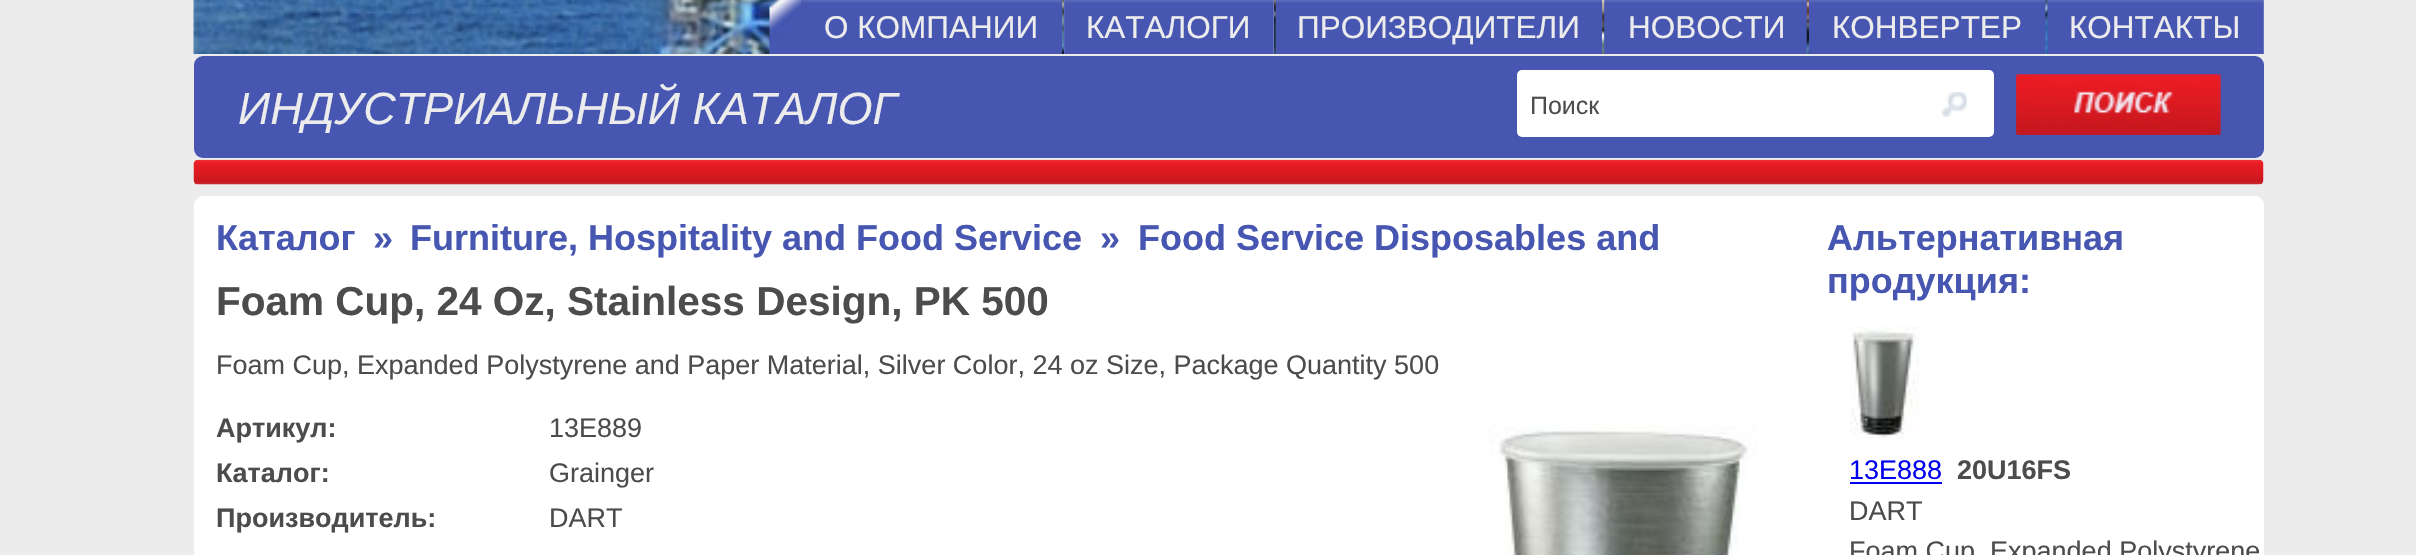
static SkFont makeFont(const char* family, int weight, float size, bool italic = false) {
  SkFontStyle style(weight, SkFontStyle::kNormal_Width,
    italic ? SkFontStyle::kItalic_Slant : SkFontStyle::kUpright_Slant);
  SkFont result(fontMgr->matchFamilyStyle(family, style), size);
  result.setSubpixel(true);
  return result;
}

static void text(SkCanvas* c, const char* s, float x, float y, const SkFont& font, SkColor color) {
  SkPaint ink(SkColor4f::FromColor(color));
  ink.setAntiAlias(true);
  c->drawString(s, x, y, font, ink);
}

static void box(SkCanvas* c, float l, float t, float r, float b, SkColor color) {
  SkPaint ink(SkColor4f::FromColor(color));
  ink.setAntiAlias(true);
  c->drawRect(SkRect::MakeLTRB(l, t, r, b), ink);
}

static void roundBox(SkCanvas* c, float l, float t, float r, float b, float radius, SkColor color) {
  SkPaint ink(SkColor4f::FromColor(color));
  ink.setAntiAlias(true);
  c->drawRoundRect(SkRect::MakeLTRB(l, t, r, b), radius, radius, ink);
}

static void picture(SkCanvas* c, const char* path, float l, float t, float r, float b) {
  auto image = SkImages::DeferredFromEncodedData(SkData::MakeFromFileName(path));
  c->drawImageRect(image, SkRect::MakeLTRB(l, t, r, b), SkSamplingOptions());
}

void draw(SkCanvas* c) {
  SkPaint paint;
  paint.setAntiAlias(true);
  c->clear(0xffececec);
  picture(c, "img_01.png", 193, 0, 2048, 54);
  picture(c, "img_02.png", 769, 0, 801, 54);
  picture(c, "img_03.png", 801, 0, 1062, 54);
  SkFont face1 = makeFont("Liberation Sans", 400, 31.5f);
  text(c, "О КОМПАНИИ", 824, 38, face1, 0xffececec);
  box(c, 1064, 0, 1274, 54, 0xff8792cf);
  picture(c, "img_04.png", 1064, 0, 1274, 54);
  text(c, "КАТАЛОГИ", 1086, 38, face1, 0xffececec);
  picture(c, "img_05.png", 1275, 0, 1602, 54);
  text(c, "ПРОИЗВОДИТЕЛИ", 1297, 38, face1, 0xffececec);
  picture(c, "img_06.png", 1604, 0, 1807, 54);
  text(c, "НОВОСТИ", 1628, 38, face1, 0xffececec);
  picture(c, "img_07.png", 1809, 0, 2046, 54);
  text(c, "КОНВЕРТЕР", 1832, 38, face1, 0xffececec);
  box(c, 2263, 0, 2264, 54, 0xff8792cf);
  picture(c, "img_08.png", 2047, 0, 2264, 54);
  text(c, "КОНТАКТЫ", 2069, 38, face1, 0xffececec);
  roundBox(c, 194, 56, 2264, 158, 9, 0xff4656b1);
  SkFont face2 = makeFont("Liberation Sans", 400, 45, true);
  text(c, "ИНДУСТРИАЛЬНЫЙ КАТАЛОГ", 238, 124, face2, 0xffececec);
  paint.setColor(0xffffffff);
  c->drawRoundRect(SkRect::MakeLTRB(1519.5f, 72.5f, 1991.5f, 134.5f), 2.5f, 2.5f, paint);
  paint.setStyle(SkPaint::kStroke_Style);
  paint.setStrokeWidth(5);
  c->drawRoundRect(SkRect::MakeLTRB(1519.5f, 72.5f, 1991.5f, 134.5f), 2.5f, 2.5f, paint);
  SkFont face3 = makeFont("Liberation Sans", 400, 25);
  text(c, "Поиск", 1530, 114, face3, 0xff4c4c4c);
  picture(c, "img_09.png", 1941, 92, 1967, 117);
  picture(c, "img_10.png", 2016, 74, 2221, 135);
  picture(c, "img_11.png", 193, 159, 2264, 185);
  roundBox(c, 194, 196, 2264, 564, 9, 0xffffffff);
  SkFont face4 = makeFont("Liberation Sans", 700, 36);
  text(c, "Каталог", 216, 250, face4, 0xff4656b1);
  text(c, "»", 373, 250, face4, 0xff4656b1);
  text(c, "Furniture, Hospitality and Food Service", 410, 250, face4, 0xff4656b1);
  text(c, "»", 1100, 250, face4, 0xff4656b1);
  text(c, "Food Service Disposables and", 1138, 250, face4, 0xff4656b1);
  SkFont face5 = makeFont("Liberation Sans", 700, 40.5f);
  text(c, "Foam Cup, 24 Oz, Stainless Design, PK 500", 216, 315, face5, 0xff4c4c4c);
  SkFont face6 = makeFont("Liberation Sans", 400, 27);
  text(c, "Foam Cup, Expanded Polystyrene and Paper Material, Silver Color, 24 oz Size, Package Quantity 500", 216, 374, face6, 0xff4c4c4c);
  SkFont face7 = makeFont("Liberation Sans", 700, 27);
  text(c, "Артикул:", 216, 437, face7, 0xff4c4c4c);
  text(c, "13E889", 549, 437, face6, 0xff4c4c4c);
  text(c, "Каталог:", 216, 482, face7, 0xff4c4c4c);
  text(c, "Grainger", 549, 482, face6, 0xff4c4c4c);
  text(c, "Производитель:", 216, 527, face7, 0xff4c4c4c);
  text(c, "DART", 549, 527, face6, 0xff4c4c4c);
  picture(c, "img_12.png", 1488, 425, 1757, 555);
  text(c, "Альтернативная", 1827, 250, face4, 0xff4656b1);
  text(c, "продукция:", 1827, 293, face4, 0xff4656b1);
  picture(c, "img_13.png", 1850, 326, 1919, 439);
  text(c, "13E888", 1849, 479, face6, 0xff0000ee);
  box(c, 1850, 482, 1942, 484, 0xff0000ee);
  text(c, "20U16FS", 1957, 479, face7, 0xff4c4c4c);
  text(c, "DART", 1849, 520, face6, 0xff4c4c4c);
  text(c, "Foam Cup, Expanded Polystyrene", 1849, 560, face6, 0xff4c4c4c);
}
